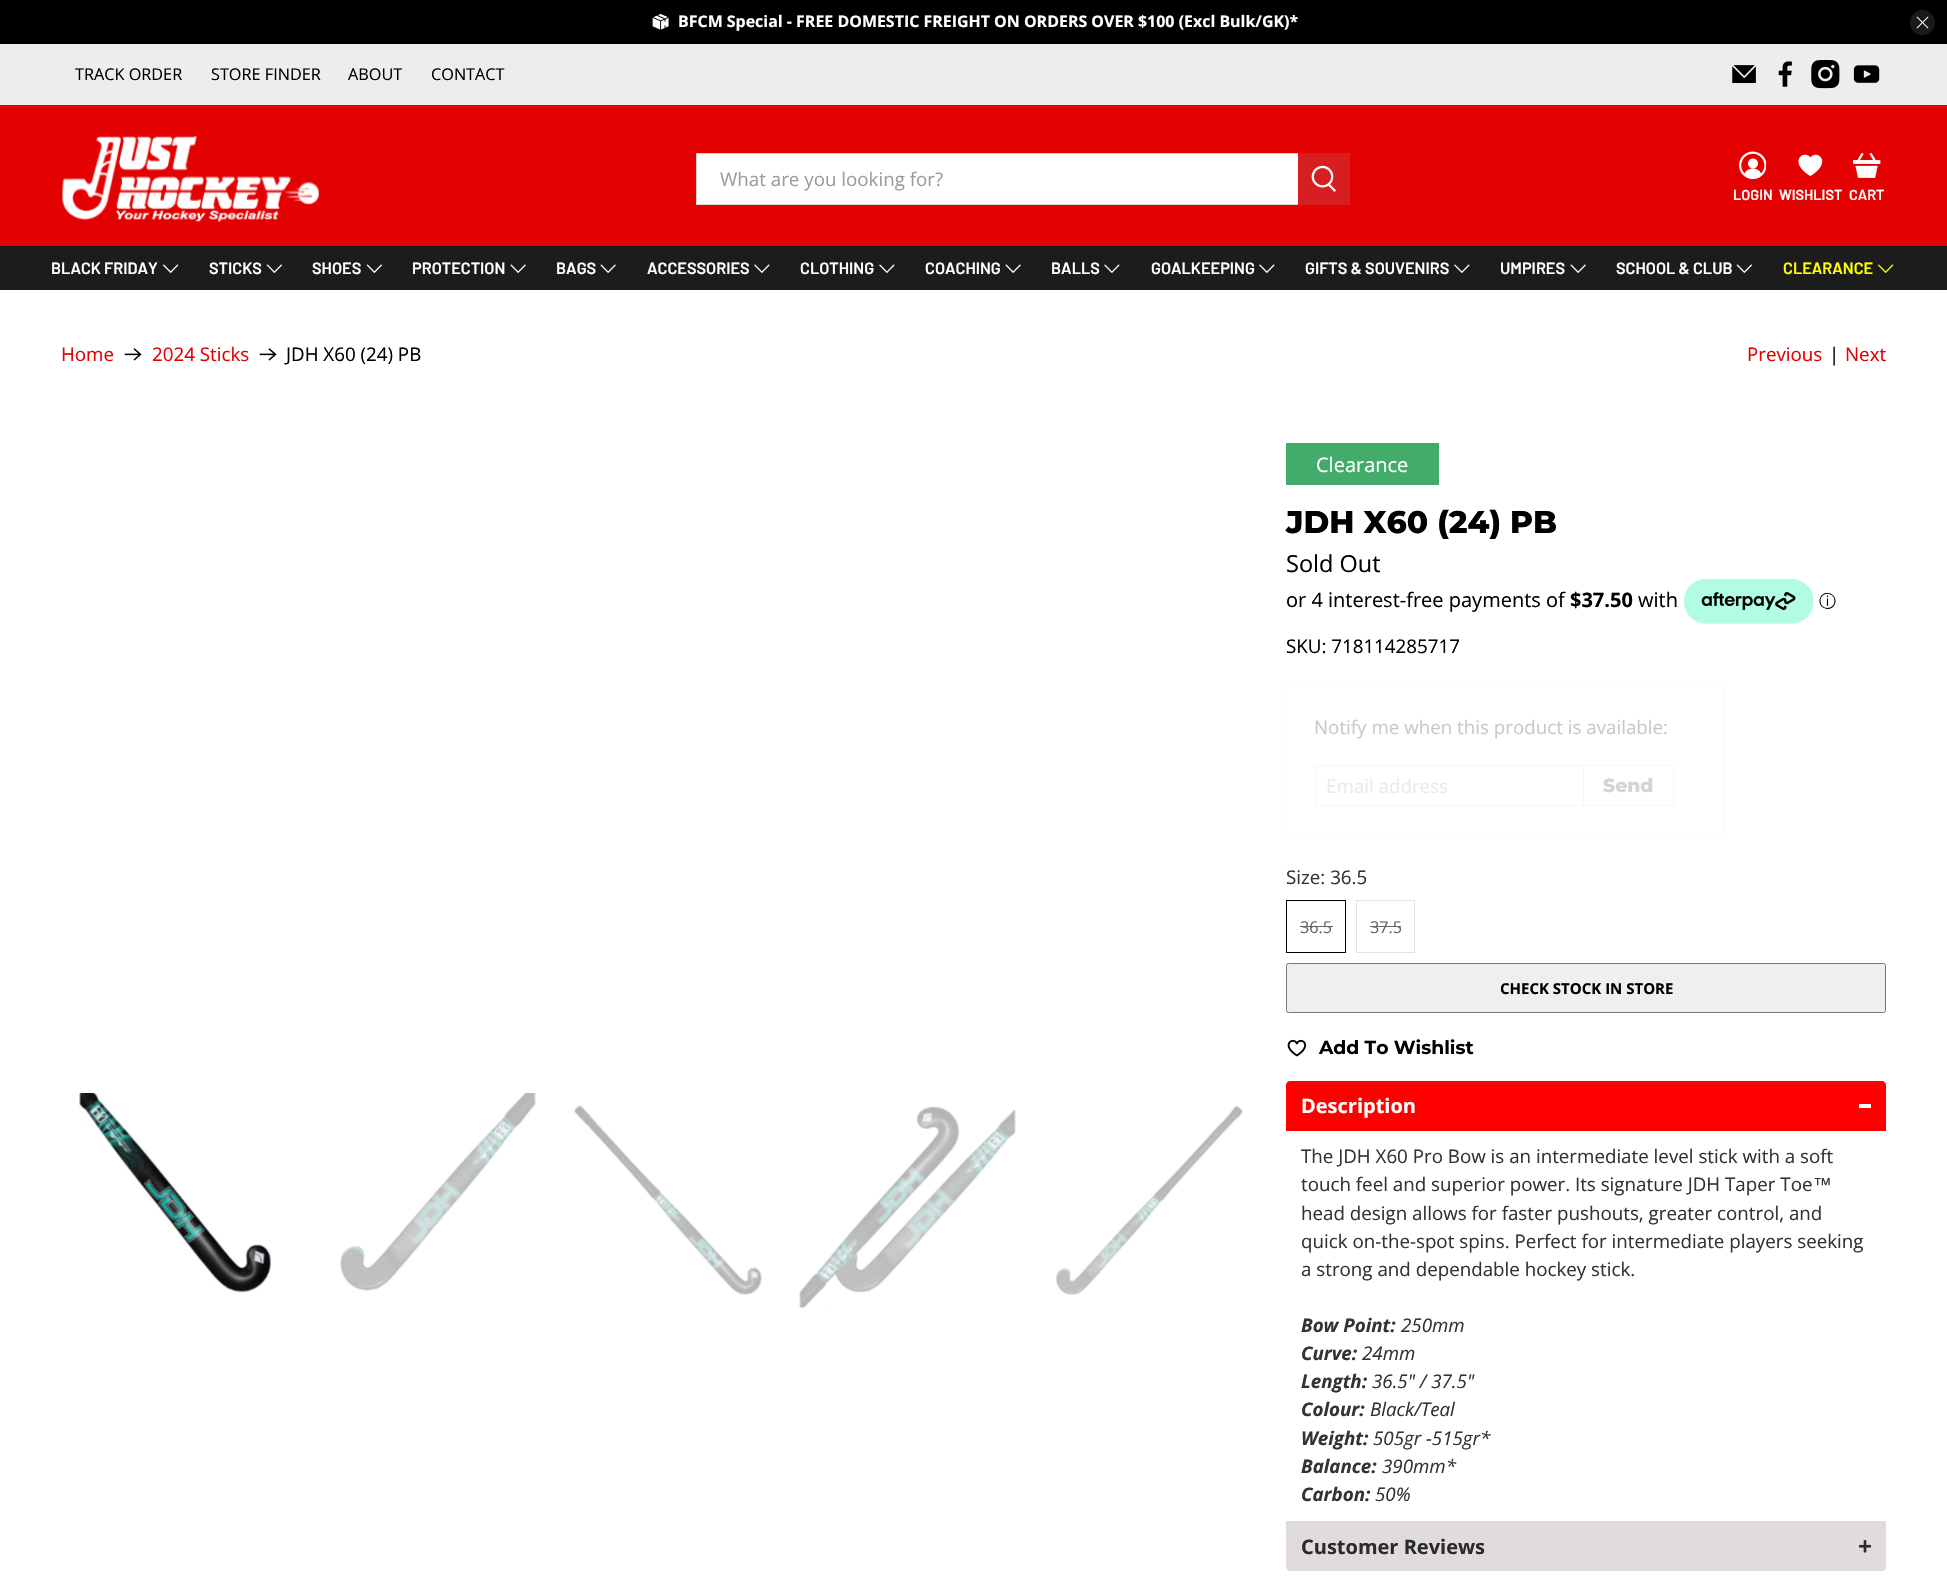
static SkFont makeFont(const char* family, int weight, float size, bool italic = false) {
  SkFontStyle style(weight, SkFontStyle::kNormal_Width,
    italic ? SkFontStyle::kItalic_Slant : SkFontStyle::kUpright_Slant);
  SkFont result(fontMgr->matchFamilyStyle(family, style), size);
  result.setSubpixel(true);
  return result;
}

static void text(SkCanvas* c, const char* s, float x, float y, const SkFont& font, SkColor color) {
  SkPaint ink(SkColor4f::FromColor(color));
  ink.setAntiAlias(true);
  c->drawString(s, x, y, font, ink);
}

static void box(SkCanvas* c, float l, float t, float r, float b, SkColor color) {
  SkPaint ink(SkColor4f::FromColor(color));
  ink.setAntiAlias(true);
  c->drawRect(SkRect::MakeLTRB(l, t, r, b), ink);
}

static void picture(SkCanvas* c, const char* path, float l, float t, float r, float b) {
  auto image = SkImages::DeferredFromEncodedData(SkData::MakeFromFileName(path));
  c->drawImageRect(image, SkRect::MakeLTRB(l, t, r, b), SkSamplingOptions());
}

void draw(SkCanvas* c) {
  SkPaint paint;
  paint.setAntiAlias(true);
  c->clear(0xffffffff);
  box(c, 0, 0, 1947, 44, 0xff000000);
  picture(c, "img_01.png", 652, 14, 669, 30);
  SkFont face1 = makeFont("Open Sans", 700, 15.95f);
  text(c, "BFCM Special - FREE DOMESTIC FREIGHT ON ORDERS OVER $100 (Excl Bulk/GK)*", 678, 27, face1, 0xffffffff);
  paint.setColor(0xff1a1a1a);
  c->drawCircle(1922.5f, 22.5f, 12.5f, paint);
  picture(c, "img_02.png", 1916, 16, 1929, 29);
  box(c, 0, 44, 1947, 105, 0xffededed);
  SkFont face2 = makeFont("Open Sans", 400, 16.25f);
  text(c, "TRACK ORDER", 75, 80, face2, 0xff000000);
  text(c, "STORE FINDER", 211, 80, face2, 0xff000000);
  text(c, "ABOUT", 348, 80, face2, 0xff000000);
  text(c, "CONTACT", 431, 80, face2, 0xff000000);
  picture(c, "img_03.png", 1732, 65, 1756, 83);
  picture(c, "img_04.png", 1778, 61, 1792, 87);
  picture(c, "img_05.png", 1811, 60, 1840, 89);
  picture(c, "img_06.png", 1853, 65, 1880, 83);
  box(c, 0, 105, 1947, 246, 0xffe30102);
  picture(c, "img_07.png", 62, 136, 319, 222);
  paint.setColor(0xffffffff);
  c->drawRect(SkRect::MakeLTRB(696.5f, 153.5f, 1298.5f, 204.5f), paint);
  paint.setStyle(SkPaint::kStroke_Style);
  paint.setStrokeWidth(1);
  paint.setColor(0xffd3d3d3);
  c->drawRect(SkRect::MakeLTRB(696.5f, 153.5f, 1298.5f, 204.5f), paint);
  SkFont face3 = makeFont("Open Sans", 400, 18.75f);
  text(c, "What are you looking for?", 720, 186, face3, 0xff9b9b9b);
  box(c, 1298, 153, 1350, 205, 0xffd71e20);
  picture(c, "img_08.png", 1311, 165, 1336, 192);
  picture(c, "img_09.png", 1739, 151, 1766, 180);
  SkFont face4 = makeFont("Barlow", 600, 14.5f);
  text(c, "LOGIN", 1733, 200, face4, 0xffffffff);
  picture(c, "img_10.png", 1798, 154, 1823, 176);
  text(c, "WISHLIST", 1779, 200, face4, 0xffffffff);
  picture(c, "img_11.png", 1853, 152, 1881, 178);
  text(c, "CART", 1849, 200, face4, 0xffffffff);
  box(c, 0, 246, 1947, 290, 0xff1c1c1c);
  SkFont face5 = makeFont("Barlow", 600, 16.25f);
  text(c, "BLACK FRIDAY", 51, 274, face5, 0xffffffff);
  picture(c, "img_12.png", 162, 264, 179, 273);
  text(c, "STICKS", 209, 274, face5, 0xffffffff);
  picture(c, "img_13.png", 266, 264, 283, 273);
  text(c, "SHOES", 312, 274, face5, 0xffffffff);
  picture(c, "img_13.png", 366, 264, 383, 273);
  text(c, "PROTECTION", 412, 274, face5, 0xffffffff);
  picture(c, "img_14.png", 510, 264, 526, 273);
  text(c, "BAGS", 556, 274, face5, 0xffffffff);
  picture(c, "img_14.png", 600, 264, 616, 273);
  text(c, "ACCESSORIES", 647, 274, face5, 0xffffffff);
  picture(c, "img_15.png", 754, 264, 770, 273);
  text(c, "CLOTHING", 800, 274, face5, 0xffffffff);
  picture(c, "img_15.png", 879, 264, 895, 273);
  text(c, "COACHING", 925, 274, face5, 0xffffffff);
  picture(c, "img_14.png", 1005, 264, 1021, 273);
  text(c, "BALLS", 1051, 274, face5, 0xffffffff);
  picture(c, "img_15.png", 1104, 264, 1120, 273);
  text(c, "GOALKEEPING", 1151, 274, face5, 0xffffffff);
  picture(c, "img_15.png", 1259, 264, 1275, 273);
  text(c, "GIFTS & SOUVENIRS", 1305, 274, face5, 0xffffffff);
  picture(c, "img_15.png", 1454, 264, 1470, 273);
  text(c, "UMPIRES", 1500, 274, face5, 0xffffffff);
  picture(c, "img_14.png", 1570, 264, 1586, 273);
  text(c, "SCHOOL & CLUB", 1616, 274, face5, 0xffffffff);
  picture(c, "img_13.png", 1736, 264, 1753, 273);
  text(c, "CLEARANCE", 1783, 274, face5, 0xffffff00);
  picture(c, "img_16.png", 1877, 264, 1894, 273);
  text(c, "Home", 61, 361, face3, 0xffe30102);
  picture(c, "img_17.png", 124, 348, 142, 361);
  text(c, "2024 Sticks", 152, 361, face3, 0xffe30102);
  picture(c, "img_17.png", 259, 348, 277, 361);
  text(c, "JDH X60 (24) PB", 286, 361, face3, 0xff000000);
  text(c, "Previous", 1747, 361, face3, 0xffe30102);
  text(c, "|", 1829, 361, face3, 0xff000000);
  text(c, "Next", 1845, 361, face3, 0xffe30102);
  picture(c, "img_18.png", 79, 1093, 271, 1293);
  picture(c, "img_19.png", 340, 1093, 536, 1291);
  picture(c, "img_20.png", 574, 1105, 762, 1295);
  picture(c, "img_21.png", 799, 1106, 1016, 1308);
  picture(c, "img_22.png", 1056, 1105, 1243, 1295);
  box(c, 1286, 443, 1439, 485, 0xff43ac6a);
  SkFont face6 = makeFont("Open Sans", 400, 20);
  text(c, "Clearance", 1316, 472, face6, 0xffffffff);
  SkFont face7 = makeFont("Montserrat", 800, 31.25f);
  text(c, "JDH X60 (24) PB", 1286, 533, face7, 0xff000000);
  SkFont face8 = makeFont("Open Sans", 400, 23.5f);
  text(c, "Sold Out", 1286, 572, face8, 0xff000000);
  text(c, "or 4 interest-free payments of", 1286, 607, face6, 0xff000000);
  SkFont face9 = makeFont("Open Sans", 700, 20);
  text(c, "$37.50", 1570, 607, face9, 0xff000000);
  text(c, "with", 1638, 607, face6, 0xff000000);
  picture(c, "img_23.png", 1684, 579, 1814, 624);
  SkFont face10 = makeFont("WenQuanYi Zen Hei", 500, 17);
  text(c, "ⓘ", 1819, 607, face10, 0xff000000);
  text(c, "SKU: 718114285717", 1286, 653, face3, 0xff000000);
  paint.setColor(0xfffafafa);
  c->drawRect(SkRect::MakeLTRB(1285.5f, 684.5f, 1724.5f, 835.5f), paint);
  text(c, "Notify me when this product is available:", 1314, 734, face3, 0xffc9c9c9);
  paint.setColor(0xfff6f6f6);
  c->drawRect(SkRect::MakeLTRB(1315.5f, 765.5f, 1583.5f, 805.5f), paint);
  text(c, "Email address", 1326, 793, face3, 0xffeaeaea);
  paint.setColor(0xfff7f7f7);
  c->drawRect(SkRect::MakeLTRB(1583.5f, 765.5f, 1673.5f, 805.5f), paint);
  SkFont face11 = makeFont("Montserrat", 800, 18.75f);
  text(c, "Send", 1603, 792, face11, 0xffd4d4d4);
  text(c, "Size: 36.5", 1286, 884, face3, 0xff333333);
  paint.setColor(0xff000000);
  c->drawRect(SkRect::MakeLTRB(1286.5f, 900.5f, 1345.5f, 952.5f), paint);
  text(c, "36.5", 1300, 933, face2, 0xff666666);
  box(c, 1300, 926, 1333, 927, 0xff666666);
  paint.setColor(0xffe2e2e2);
  c->drawRect(SkRect::MakeLTRB(1356.5f, 900.5f, 1414.5f, 952.5f), paint);
  text(c, "37.5", 1370, 933, face2, 0xff666666);
  box(c, 1370, 926, 1401, 927, 0xff666666);
  paint.setStyle(SkPaint::kFill_Style);
  paint.setColor(0xffefefef);
  c->drawRoundRect(SkRect::MakeLTRB(1286.5f, 963.5f, 1885.5f, 1012.5f), 2, 2, paint);
  paint.setStyle(SkPaint::kStroke_Style);
  paint.setColor(0xff767676);
  c->drawRoundRect(SkRect::MakeLTRB(1286.5f, 963.5f, 1885.5f, 1012.5f), 2, 2, paint);
  SkFont face12 = makeFont("Open Sans", 700, 15);
  text(c, "CHECK STOCK IN STORE", 1500, 994, face12, 0xff000000);
  picture(c, "img_24.png", 1287, 1039, 1307, 1057);
  SkFont face13 = makeFont("Montserrat", 700, 18.75f);
  text(c, "Add To Wishlist", 1319, 1054, face13, 0xff000000);
  paint.setStyle(SkPaint::kFill_Style);
  paint.setColor(0xffff0000);
  c->drawPath(SkPathBuilder().moveTo(1290, 1081).lineTo(1882, 1081).cubicTo(1884, 1081, 1886, 1083, 1886, 1085).lineTo(1886, 1131).lineTo(1286, 1131).lineTo(1286, 1085).cubicTo(1286, 1083, 1288, 1081, 1290, 1081).close().detach(), paint);
  text(c, "Description", 1301, 1113, face9, 0xffffffff);
  box(c, 1859, 1104, 1871, 1108, 0xffffffff);
  text(c, "The JDH X60 Pro Bow is an intermediate level stick with a soft", 1301, 1163, face3, 0xff333333);
  text(c, "touch feel and superior power. Its signature JDH Taper Toe", 1301, 1191, face3, 0xff333333);
  SkFont face14 = makeFont("Liberation Sans", 400, 18.75f);
  text(c, "™", 1813, 1191, face14, 0xff333333);
  text(c, "head design allows for faster pushouts, greater control, and", 1301, 1220, face3, 0xff333333);
  text(c, "quick on-the-spot spins. Perfect for intermediate players seeking", 1301, 1248, face3, 0xff333333);
  text(c, "a strong and dependable hockey stick.", 1301, 1276, face3, 0xff333333);
  SkFont face15 = makeFont("Open Sans", 700, 18.75f, true);
  text(c, "Bow Point:", 1301, 1332, face15, 0xff333333);
  SkFont face16 = makeFont("Open Sans", 400, 18.75f, true);
  text(c, "250mm", 1401, 1332, face16, 0xff333333);
  text(c, "Curve:", 1301, 1360, face15, 0xff333333);
  text(c, "24mm", 1362, 1360, face16, 0xff333333);
  text(c, "Length:", 1301, 1388, face15, 0xff333333);
  text(c, "36.5\" / 37.5\"", 1372, 1388, face16, 0xff333333);
  text(c, "Colour:", 1301, 1416, face15, 0xff333333);
  text(c, "Black/Teal", 1370, 1416, face16, 0xff333333);
  text(c, "Weight:", 1301, 1445, face15, 0xff333333);
  text(c, "505gr -515gr*", 1373, 1445, face16, 0xff333333);
  text(c, "Balance:", 1301, 1473, face15, 0xff333333);
  text(c, "390mm*", 1382, 1473, face16, 0xff333333);
  text(c, "Carbon:", 1301, 1501, face15, 0xff333333);
  text(c, "50%", 1375, 1501, face16, 0xff333333);
  paint.setColor(0xffe0dcdb);
  c->drawPath(SkPathBuilder().moveTo(1286, 1521).lineTo(1886, 1521).lineTo(1886, 1567).cubicTo(1886, 1569, 1884, 1571, 1882, 1571).lineTo(1290, 1571).cubicTo(1288, 1571, 1286, 1569, 1286, 1567).close().detach(), paint);
  text(c, "Customer Reviews", 1301, 1554, face9, 0xff2c2b2b);
  picture(c, "img_25.png", 1859, 1540, 1871, 1553);
}
